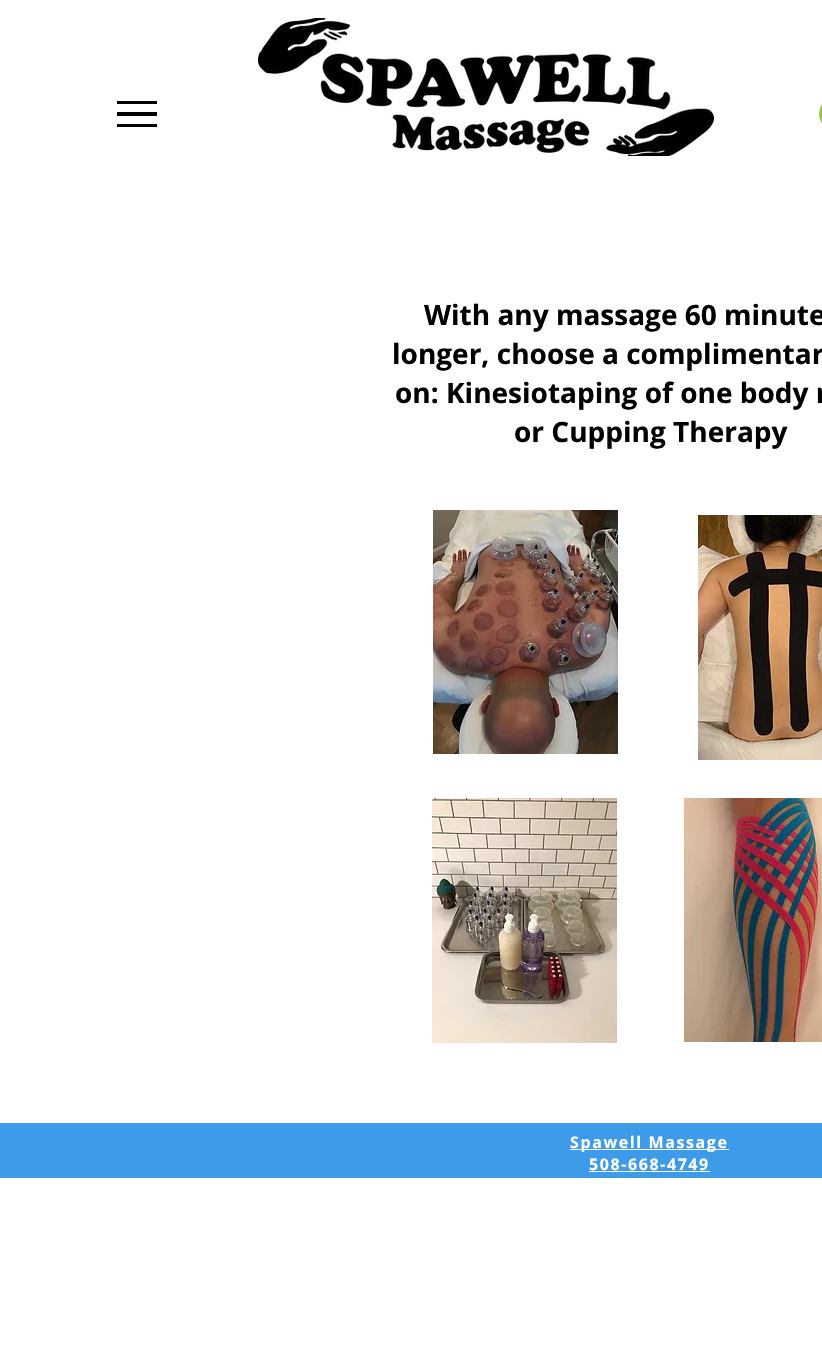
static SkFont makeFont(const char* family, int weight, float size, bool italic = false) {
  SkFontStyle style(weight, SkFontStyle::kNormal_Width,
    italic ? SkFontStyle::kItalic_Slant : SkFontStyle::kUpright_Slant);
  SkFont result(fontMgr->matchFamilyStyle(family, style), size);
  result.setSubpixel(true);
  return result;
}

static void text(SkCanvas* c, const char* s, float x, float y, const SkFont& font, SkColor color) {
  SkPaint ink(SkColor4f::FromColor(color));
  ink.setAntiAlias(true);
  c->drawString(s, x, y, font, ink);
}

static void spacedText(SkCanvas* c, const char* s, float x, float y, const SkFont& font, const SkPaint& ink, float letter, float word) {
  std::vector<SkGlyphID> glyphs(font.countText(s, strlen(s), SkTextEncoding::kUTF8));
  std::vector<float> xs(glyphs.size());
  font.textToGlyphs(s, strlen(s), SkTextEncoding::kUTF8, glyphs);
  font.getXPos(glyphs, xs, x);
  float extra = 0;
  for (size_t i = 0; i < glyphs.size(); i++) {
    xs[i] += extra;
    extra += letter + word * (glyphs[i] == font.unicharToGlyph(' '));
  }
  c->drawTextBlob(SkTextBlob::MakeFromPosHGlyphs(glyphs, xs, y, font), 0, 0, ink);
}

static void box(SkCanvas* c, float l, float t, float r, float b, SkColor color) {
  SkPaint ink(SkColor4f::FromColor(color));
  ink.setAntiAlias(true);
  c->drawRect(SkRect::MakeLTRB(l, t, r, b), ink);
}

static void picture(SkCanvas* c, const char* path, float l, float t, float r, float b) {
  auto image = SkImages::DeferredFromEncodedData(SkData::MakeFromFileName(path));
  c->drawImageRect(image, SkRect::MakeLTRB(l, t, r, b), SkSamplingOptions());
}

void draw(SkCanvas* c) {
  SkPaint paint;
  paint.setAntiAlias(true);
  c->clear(0xffffffff);
  box(c, 117, 124, 157, 127, 0xff000000);
  box(c, 117, 101, 157, 104, 0xff000000);
  box(c, 117, 112, 157, 116, 0xff000000);
  picture(c, "img_01.png", 258, 18, 714, 156);
  picture(c, "img_02.png", 819, 104, 822, 124);
  SkFont face1 = makeFont("Open Sans", 700, 28);
  text(c, "With any massage 60 minute", 424, 325, face1, 0xff000000);
  text(c, "longer, choose a complimentar", 392, 364, face1, 0xff000000);
  text(c, "on: Kinesiotaping of one body r", 395, 403, face1, 0xff000000);
  text(c, "or Cupping Therapy", 514, 442, face1, 0xff000000);
  picture(c, "img_03.png", 433, 510, 618, 754);
  picture(c, "img_04.png", 698, 515, 822, 760);
  picture(c, "img_05.png", 432, 798, 617, 1043);
  picture(c, "img_06.png", 684, 798, 822, 1042);
  box(c, 0, 1123, 822, 1178, 0xff3d9be9);
  box(c, 570, 1149, 729, 1150, 0xffffffff);
  SkFont face2 = makeFont("Open Sans", 700, 16);
  paint.setColor(0xffffffff);
  spacedText(c, "Spawell Massage", 570, 1148, face2, paint, 1.6f, 0);
  spacedText(c, "508-668-4749", 589, 1170, face2, paint, 1.6f, 0);
  box(c, 589, 1171, 710, 1172, 0xffffffff);
}
